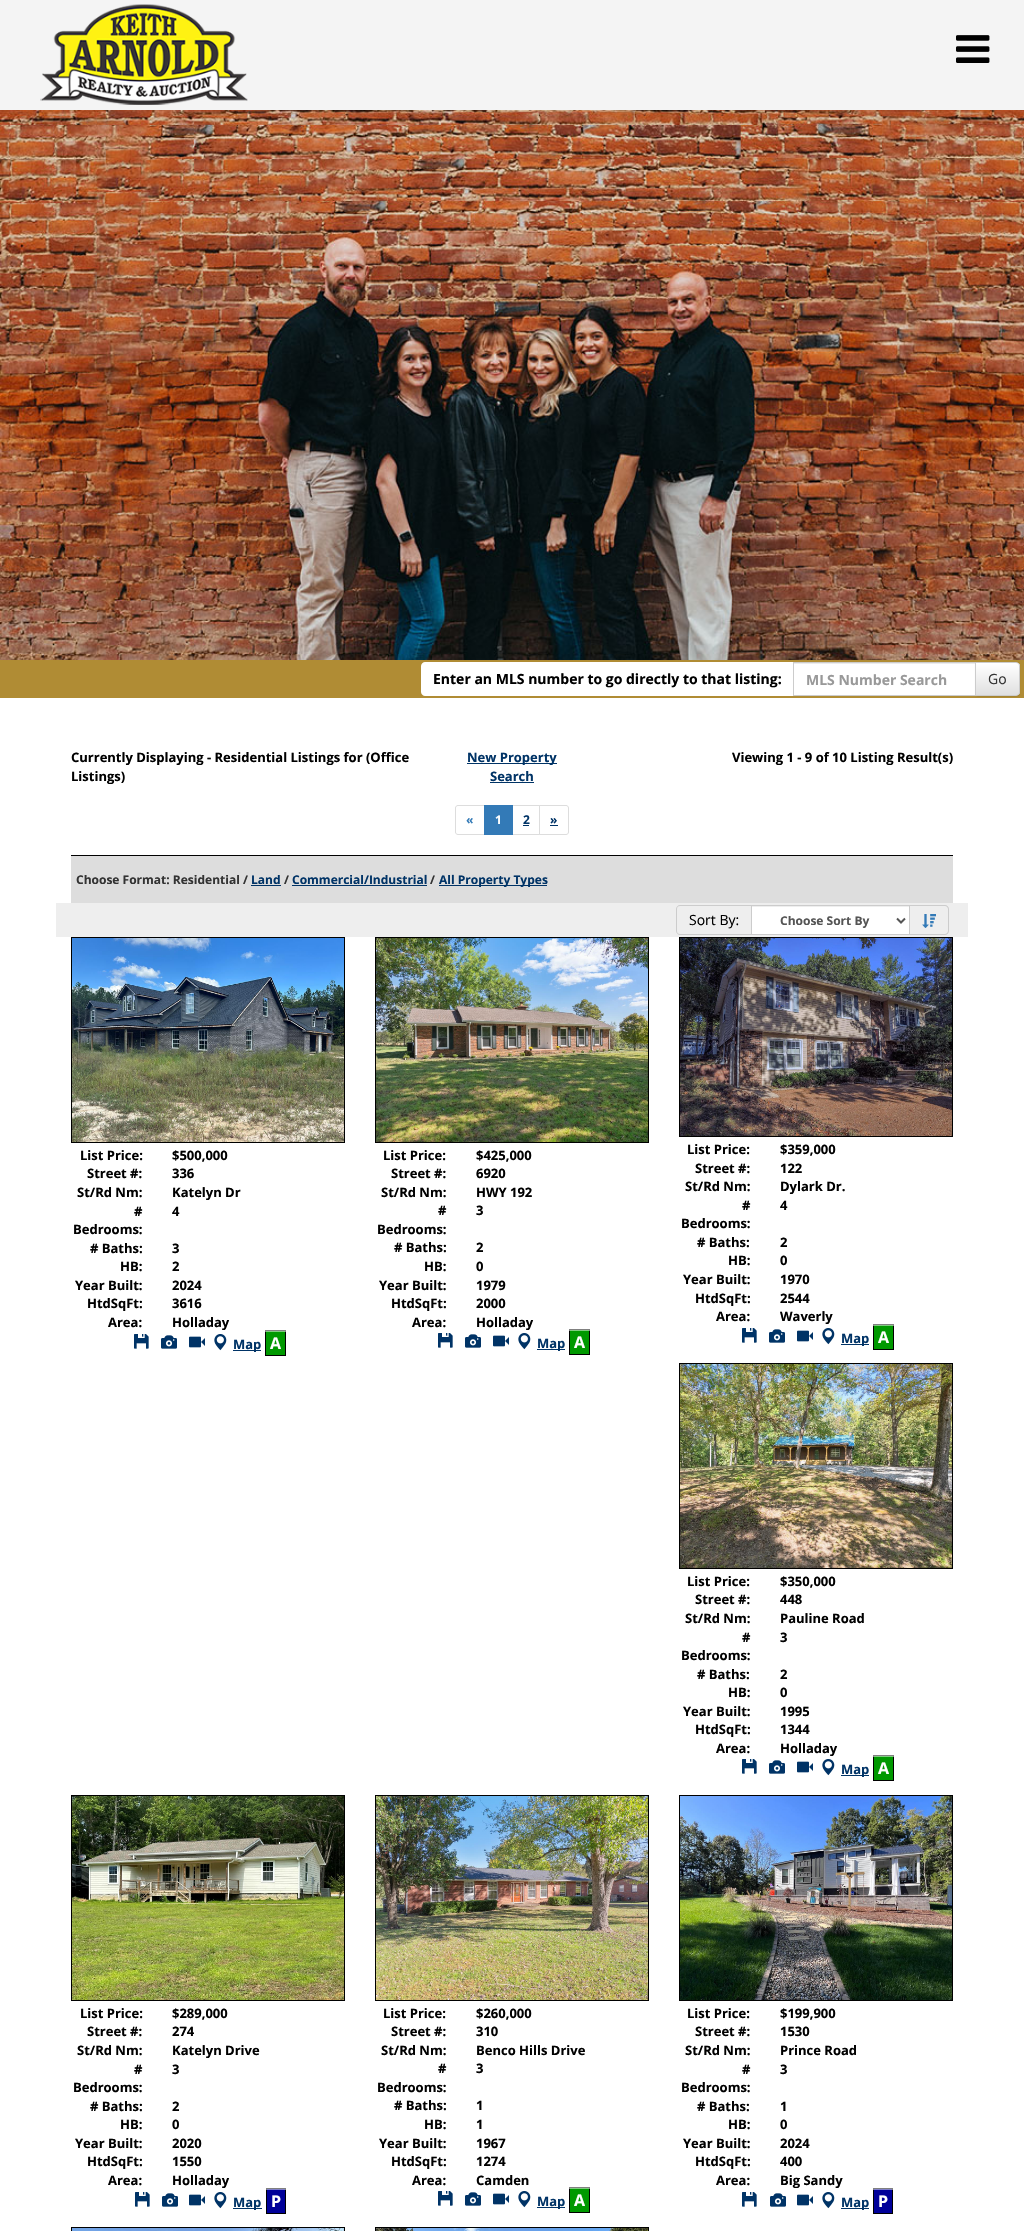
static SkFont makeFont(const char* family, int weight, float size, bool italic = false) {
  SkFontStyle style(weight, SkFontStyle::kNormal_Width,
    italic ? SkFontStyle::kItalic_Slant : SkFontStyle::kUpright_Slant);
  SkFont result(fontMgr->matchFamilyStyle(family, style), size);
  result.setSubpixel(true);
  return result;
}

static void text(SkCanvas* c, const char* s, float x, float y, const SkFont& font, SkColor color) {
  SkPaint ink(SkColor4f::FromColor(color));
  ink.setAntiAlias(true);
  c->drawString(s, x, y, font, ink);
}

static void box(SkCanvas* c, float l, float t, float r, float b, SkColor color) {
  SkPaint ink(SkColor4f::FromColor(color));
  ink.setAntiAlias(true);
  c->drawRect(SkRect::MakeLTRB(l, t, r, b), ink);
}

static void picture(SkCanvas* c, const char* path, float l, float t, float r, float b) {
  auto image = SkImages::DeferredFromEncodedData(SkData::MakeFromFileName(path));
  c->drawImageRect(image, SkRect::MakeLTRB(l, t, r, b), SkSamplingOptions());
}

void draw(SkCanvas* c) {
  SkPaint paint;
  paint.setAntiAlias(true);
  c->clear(0xffffffff);
  box(c, 0, 0, 1024, 110, 0xfff4f4f4);
  picture(c, "img_01.png", 956, 35, 990, 63);
  picture(c, "img_02.png", 40, 4, 248, 105);
  picture(c, "img_03.png", 0, 110, 1024, 660);
  box(c, 0, 660, 1024, 698, 0xffb08c34);
  paint.setColor(0xffffffff);
  c->drawPath(SkPathBuilder().moveTo(425, 662).lineTo(793, 662).lineTo(793, 696).lineTo(425, 696).cubicTo(423, 696, 421, 694, 421, 692).lineTo(421, 666).cubicTo(421, 664, 423, 662, 425, 662).close().detach(), paint);
  SkFont face1 = makeFont("Open Sans", 700, 14);
  text(c, "Enter an MLS number to go directly to that listing:", 433, 684, face1, 0xff000000);
  box(c, 794, 664, 975, 695, 0xffffffff);
  box(c, 794, 663, 975, 664, 0xffececec);
  paint.setStyle(SkPaint::kStroke_Style);
  paint.setStrokeWidth(1);
  paint.setColor(0xffcccccc);
  c->drawRect(SkRect::MakeLTRB(793.5f, 662.5f, 975.5f, 695.5f), paint);
  text(c, "MLS Number Search", 806, 685, face1, 0xff999999);
  paint.setStyle(SkPaint::kFill_Style);
  paint.setColor(0x12000000);
  paint.setMaskFilter(SkMaskFilter::MakeBlur(kNormal_SkBlurStyle, 0.5f));
  c->drawRoundRect(SkRect::MakeLTRB(975, 663, 1020, 697), 4, 4, paint);
  paint.setMaskFilter(nullptr);
  c->save();
  c->clipPath(SkPathBuilder().moveTo(975, 662).lineTo(1016, 662).cubicTo(1018, 662, 1020, 664, 1020, 666).lineTo(1020, 692).cubicTo(1020, 694, 1018, 696, 1016, 696).lineTo(975, 696).close().detach(), true);
  {
    const SkColor colors[] = {0xffffffff, 0xffe0e0e0};
    const float stops[] = {0, 1};
    const SkPoint ends[] = {{998, 663}, {998, 695}};
    paint.setShader(SkGradientShader::MakeLinear(ends, colors, stops, 2, SkTileMode::kClamp));
    paint.setAlpha(255);
  }
  c->drawRect(SkRect::MakeLTRB(976, 663, 1020, 695), paint);
  c->restore();
  paint.setStyle(SkPaint::kStroke_Style);
  paint.setShader(nullptr);
  paint.setColor(0xffcccccc);
  c->drawPath(SkPathBuilder().moveTo(975.5f, 662.5f).lineTo(1016, 662.5f).cubicTo(1018, 662.5f, 1019.5f, 664, 1019.5f, 666).lineTo(1019.5f, 692).cubicTo(1019.5f, 694, 1018, 695.5f, 1016, 695.5f).lineTo(975.5f, 695.5f).close().detach(), paint);
  SkFont face2 = makeFont("Open Sans", 400, 14);
  text(c, "Go", 988, 684, face2, 0xff333333);
  SkFont face3 = makeFont("Open Sans", 700, 13);
  text(c, "Currently Displaying - Residential Listings for (Office", 71, 762, face3, 0xff000000);
  text(c, "Listings)", 71, 781, face3, 0xff000000);
  box(c, 467, 763, 557, 764, 0xff003366);
  text(c, "New Property", 467, 762, face3, 0xff003366);
  text(c, "Search", 490, 781, face3, 0xff003366);
  box(c, 490, 782, 534, 783, 0xff003366);
  text(c, "Viewing 1 - 9 of 10 Listing Result(s)", 732, 762, face3, 0xff000000);
  paint.setColor(0xffdddddd);
  c->drawPath(SkPathBuilder().moveTo(458, 805.5f).lineTo(484.5f, 805.5f).lineTo(484.5f, 834.5f).lineTo(458, 834.5f).cubicTo(456.5f, 834.5f, 455.5f, 833.5f, 455.5f, 832).lineTo(455.5f, 808).cubicTo(455.5f, 806.5f, 456.5f, 805.5f, 458, 805.5f).close().detach(), paint);
  SkFont face4 = makeFont("Open Sans", 700, 12);
  text(c, "«", 466, 824, face4, 0xff337ab7);
  c->drawRect(SkRect::MakeLTRB(512.5f, 805.5f, 539.5f, 834.5f), paint);
  box(c, 484, 805, 513, 835, 0xff337ab7);
  text(c, "1", 495, 824, face4, 0xffffffff);
  text(c, "2", 523, 824, face4, 0xff003366);
  box(c, 523, 825, 529, 826, 0xff003366);
  paint.setStyle(SkPaint::kFill_Style);
  paint.setColor(0xffffffff);
  c->drawPath(SkPathBuilder().moveTo(539.5f, 805.5f).lineTo(566, 805.5f).cubicTo(567.5f, 805.5f, 568.5f, 806.5f, 568.5f, 808).lineTo(568.5f, 832).cubicTo(568.5f, 833.5f, 567.5f, 834.5f, 566, 834.5f).lineTo(539.5f, 834.5f).close().detach(), paint);
  paint.setStyle(SkPaint::kStroke_Style);
  paint.setColor(0xffdddddd);
  c->drawPath(SkPathBuilder().moveTo(539.5f, 805.5f).lineTo(566, 805.5f).cubicTo(567.5f, 805.5f, 568.5f, 806.5f, 568.5f, 808).lineTo(568.5f, 832).cubicTo(568.5f, 833.5f, 567.5f, 834.5f, 566, 834.5f).lineTo(539.5f, 834.5f).close().detach(), paint);
  text(c, "»", 550, 824, face4, 0xff003366);
  box(c, 550, 825, 558, 826, 0xff003366);
  box(c, 71, 856, 953, 903, 0xffdddddd);
  box(c, 71, 855, 953, 856, 0xff000000);
  text(c, "Choose Format: Residential /", 76, 884, face4, 0xff333333);
  text(c, "Land", 251, 884, face4, 0xff003366);
  box(c, 251, 885, 281, 886, 0xff003366);
  text(c, "/", 284, 884, face4, 0xff333333);
  text(c, "Commercial/Industrial", 292, 884, face4, 0xff003366);
  box(c, 292, 885, 427, 886, 0xff003366);
  text(c, "/", 430, 884, face4, 0xff333333);
  box(c, 439, 885, 547, 886, 0xff003366);
  text(c, "All Property Types", 439, 884, face4, 0xff003366);
  box(c, 56, 903, 968, 937, 0xffeeeeee);
  paint.setStyle(SkPaint::kFill_Style);
  paint.setColor(0xffcccccc);
  c->drawPath(SkPathBuilder(SkPathFillType::kEvenOdd).moveTo(680, 905).lineTo(751, 905).lineTo(751, 935).lineTo(680, 935).cubicTo(678, 935, 676, 933, 676, 931).lineTo(676, 909).cubicTo(676, 907, 678, 905, 680, 905).close().moveTo(680, 906).lineTo(751, 906).lineTo(751, 934).lineTo(680, 934).cubicTo(678, 934, 677, 933, 677, 931).lineTo(677, 909).cubicTo(677, 907, 678, 906, 680, 906).close().detach(), paint);
  text(c, "Sort By:", 689, 925, face2, 0xff000000);
  box(c, 752, 907, 909, 934, 0xffffffff);
  paint.setStyle(SkPaint::kStroke_Style);
  c->drawRect(SkRect::MakeLTRB(751.5f, 905.5f, 909.5f, 934.5f), paint);
  paint.setStrokeWidth(2);
  paint.setColor(0xff555555);
  c->drawPath(SkPathBuilder().moveTo(897, 918.5f).lineTo(901, 922.5f).lineTo(905, 918.5f).detach(), paint);
  text(c, "Choose Sort By", 780, 925, face4, 0xff555555);
  paint.setStyle(SkPaint::kFill_Style);
  paint.setColor(0xffcccccc);
  c->drawPath(SkPathBuilder(SkPathFillType::kEvenOdd).moveTo(910, 905).lineTo(945, 905).cubicTo(947, 905, 949, 907, 949, 909).lineTo(949, 931).cubicTo(949, 933, 947, 935, 945, 935).lineTo(910, 935).close().moveTo(910, 906).lineTo(945, 906).cubicTo(946.5f, 906, 948, 907.5f, 948, 909).lineTo(948, 931).cubicTo(948, 932.5f, 946.5f, 934, 945, 934).lineTo(910, 934).close().detach(), paint);
  picture(c, "img_04.png", 922, 914, 936, 928);
  paint.setStyle(SkPaint::kStroke_Style);
  paint.setStrokeWidth(1);
  paint.setColor(0xff000000);
  c->drawRect(SkRect::MakeLTRB(71.5f, 937.5f, 344.5f, 1142.5f), paint);
  picture(c, "img_05.png", 72, 938, 344, 1142);
  text(c, "List Price:", 80, 1160, face3, 0xff000000);
  text(c, "$500,000", 172, 1160, face3, 0xff000000);
  text(c, "Street #:", 87, 1178, face3, 0xff000000);
  text(c, "336", 172, 1178, face3, 0xff000000);
  text(c, "St/Rd Nm:", 77, 1197, face3, 0xff000000);
  text(c, "Katelyn Dr", 172, 1197, face3, 0xff000000);
  text(c, "#", 134, 1216, face3, 0xff000000);
  text(c, "Bedrooms:", 73, 1234, face3, 0xff000000);
  text(c, "4", 172, 1216, face3, 0xff000000);
  text(c, "# Baths:", 90, 1253, face3, 0xff000000);
  text(c, "3", 172, 1253, face3, 0xff000000);
  text(c, "HB:", 120, 1271, face3, 0xff000000);
  text(c, "2", 172, 1271, face3, 0xff000000);
  text(c, "Year Built:", 75, 1290, face3, 0xff000000);
  text(c, "2024", 172, 1290, face3, 0xff000000);
  text(c, "HtdSqFt:", 87, 1308, face3, 0xff000000);
  text(c, "3616", 172, 1308, face3, 0xff000000);
  paint.setStyle(SkPaint::kFill_Style);
  paint.setColor(0xff009900);
  c->drawRect(SkRect::MakeLTRB(265.5f, 1330.5f, 285.5f, 1355.5f), paint);
  paint.setStyle(SkPaint::kStroke_Style);
  paint.setColor(0xff000000);
  c->drawRect(SkRect::MakeLTRB(265.5f, 1330.5f, 285.5f, 1355.5f), paint);
  box(c, 265, 1330, 286, 1332, 0x80ffffff);
  text(c, "Area:", 108, 1327, face3, 0xff000000);
  text(c, "Holladay", 172, 1327, face3, 0xff000000);
  picture(c, "img_06.png", 134, 1334, 149, 1349);
  picture(c, "img_07.png", 161, 1335, 177, 1349);
  picture(c, "img_08.png", 189, 1336, 205, 1348);
  picture(c, "img_09.png", 214, 1334, 227, 1351);
  box(c, 233, 1350, 261, 1351, 0xff003366);
  text(c, "Map", 233, 1349, face3, 0xff003366);
  SkFont face5 = makeFont("Open Sans", 700, 16);
  text(c, "A", 270, 1349, face5, 0xffffffff);
  c->drawRect(SkRect::MakeLTRB(375.5f, 937.5f, 648.5f, 1142.5f), paint);
  picture(c, "img_10.png", 376, 938, 648, 1142);
  text(c, "List Price:", 383, 1160, face3, 0xff000000);
  text(c, "$425,000", 476, 1160, face3, 0xff000000);
  text(c, "Street #:", 391, 1178, face3, 0xff000000);
  text(c, "6920", 476, 1178, face3, 0xff000000);
  text(c, "St/Rd Nm:", 381, 1197, face3, 0xff000000);
  text(c, "HWY 192", 476, 1197, face3, 0xff000000);
  text(c, "#", 438, 1215, face3, 0xff000000);
  text(c, "Bedrooms:", 377, 1234, face3, 0xff000000);
  text(c, "3", 476, 1215, face3, 0xff000000);
  text(c, "# Baths:", 394, 1252, face3, 0xff000000);
  text(c, "2", 476, 1252, face3, 0xff000000);
  text(c, "HB:", 424, 1271, face3, 0xff000000);
  text(c, "0", 476, 1271, face3, 0xff000000);
  text(c, "Year Built:", 379, 1290, face3, 0xff000000);
  text(c, "1979", 476, 1290, face3, 0xff000000);
  text(c, "HtdSqFt:", 391, 1308, face3, 0xff000000);
  text(c, "2000", 476, 1308, face3, 0xff000000);
  paint.setStyle(SkPaint::kFill_Style);
  paint.setColor(0xff009900);
  c->drawRect(SkRect::MakeLTRB(569.5f, 1329.5f, 589.5f, 1354.5f), paint);
  paint.setStyle(SkPaint::kStroke_Style);
  paint.setColor(0xff000000);
  c->drawRect(SkRect::MakeLTRB(569.5f, 1329.5f, 589.5f, 1354.5f), paint);
  box(c, 569, 1329, 590, 1331, 0x80ffffff);
  text(c, "Area:", 412, 1327, face3, 0xff000000);
  text(c, "Holladay", 476, 1327, face3, 0xff000000);
  picture(c, "img_06.png", 438, 1333, 453, 1348);
  picture(c, "img_07.png", 465, 1334, 481, 1348);
  picture(c, "img_08.png", 493, 1335, 509, 1347);
  picture(c, "img_09.png", 518, 1333, 531, 1350);
  box(c, 537, 1349, 565, 1350, 0xff003366);
  text(c, "Map", 537, 1348, face3, 0xff003366);
  text(c, "A", 574, 1348, face5, 0xffffffff);
  c->drawRect(SkRect::MakeLTRB(679.5f, 937.5f, 952.5f, 1136.5f), paint);
  picture(c, "img_11.png", 680, 938, 952, 1136);
  text(c, "List Price:", 687, 1154, face3, 0xff000000);
  text(c, "$359,000", 780, 1154, face3, 0xff000000);
  text(c, "Street #:", 695, 1173, face3, 0xff000000);
  text(c, "122", 780, 1173, face3, 0xff000000);
  text(c, "St/Rd Nm:", 685, 1191, face3, 0xff000000);
  text(c, "Dylark Dr.", 780, 1191, face3, 0xff000000);
  text(c, "#", 742, 1210, face3, 0xff000000);
  text(c, "Bedrooms:", 681, 1228, face3, 0xff000000);
  text(c, "4", 780, 1210, face3, 0xff000000);
  text(c, "# Baths:", 697, 1247, face3, 0xff000000);
  text(c, "2", 780, 1247, face3, 0xff000000);
  text(c, "HB:", 728, 1265, face3, 0xff000000);
  text(c, "0", 780, 1265, face3, 0xff000000);
  text(c, "Year Built:", 683, 1284, face3, 0xff000000);
  text(c, "1970", 780, 1284, face3, 0xff000000);
  text(c, "HtdSqFt:", 695, 1303, face3, 0xff000000);
  text(c, "2544", 780, 1303, face3, 0xff000000);
  paint.setStyle(SkPaint::kFill_Style);
  paint.setColor(0xff009900);
  c->drawRect(SkRect::MakeLTRB(873.5f, 1324.5f, 893.5f, 1349.5f), paint);
  paint.setStyle(SkPaint::kStroke_Style);
  paint.setColor(0xff000000);
  c->drawRect(SkRect::MakeLTRB(873.5f, 1324.5f, 893.5f, 1349.5f), paint);
  box(c, 873, 1324, 894, 1326, 0x80ffffff);
  text(c, "Area:", 716, 1321, face3, 0xff000000);
  text(c, "Waverly", 780, 1321, face3, 0xff000000);
  picture(c, "img_06.png", 742, 1328, 757, 1343);
  picture(c, "img_07.png", 769, 1329, 785, 1343);
  picture(c, "img_08.png", 797, 1330, 813, 1342);
  picture(c, "img_09.png", 822, 1328, 835, 1345);
  box(c, 841, 1344, 869, 1345, 0xff003366);
  text(c, "Map", 841, 1343, face3, 0xff003366);
  text(c, "A", 878, 1343, face5, 0xffffffff);
  c->drawRect(SkRect::MakeLTRB(679.5f, 1363.5f, 952.5f, 1568.5f), paint);
  picture(c, "img_12.png", 680, 1364, 952, 1568);
  text(c, "List Price:", 687, 1586, face3, 0xff000000);
  text(c, "$350,000", 780, 1586, face3, 0xff000000);
  text(c, "Street #:", 695, 1604, face3, 0xff000000);
  text(c, "448", 780, 1604, face3, 0xff000000);
  text(c, "St/Rd Nm:", 685, 1623, face3, 0xff000000);
  text(c, "Pauline Road", 780, 1623, face3, 0xff000000);
  text(c, "#", 742, 1642, face3, 0xff000000);
  text(c, "Bedrooms:", 681, 1660, face3, 0xff000000);
  text(c, "3", 780, 1642, face3, 0xff000000);
  text(c, "# Baths:", 697, 1679, face3, 0xff000000);
  text(c, "2", 780, 1679, face3, 0xff000000);
  text(c, "HB:", 728, 1697, face3, 0xff000000);
  text(c, "0", 780, 1697, face3, 0xff000000);
  text(c, "Year Built:", 683, 1716, face3, 0xff000000);
  text(c, "1995", 780, 1716, face3, 0xff000000);
  text(c, "HtdSqFt:", 695, 1734, face3, 0xff000000);
  text(c, "1344", 780, 1734, face3, 0xff000000);
  paint.setStyle(SkPaint::kFill_Style);
  paint.setColor(0xff009900);
  c->drawRect(SkRect::MakeLTRB(873.5f, 1755.5f, 893.5f, 1780.5f), paint);
  paint.setStyle(SkPaint::kStroke_Style);
  paint.setColor(0xff000000);
  c->drawRect(SkRect::MakeLTRB(873.5f, 1755.5f, 893.5f, 1780.5f), paint);
  box(c, 873, 1755, 894, 1757, 0x80ffffff);
  text(c, "Area:", 716, 1753, face3, 0xff000000);
  text(c, "Holladay", 780, 1753, face3, 0xff000000);
  picture(c, "img_06.png", 742, 1759, 757, 1774);
  picture(c, "img_07.png", 769, 1760, 785, 1774);
  picture(c, "img_08.png", 797, 1761, 813, 1773);
  picture(c, "img_09.png", 822, 1759, 835, 1776);
  box(c, 841, 1775, 869, 1776, 0xff003366);
  text(c, "Map", 841, 1774, face3, 0xff003366);
  text(c, "A", 878, 1774, face5, 0xffffffff);
  c->drawRect(SkRect::MakeLTRB(71.5f, 1795.5f, 344.5f, 2000.5f), paint);
  picture(c, "img_13.png", 72, 1796, 344, 2000);
  text(c, "List Price:", 80, 2018, face3, 0xff000000);
  text(c, "$289,000", 172, 2018, face3, 0xff000000);
  text(c, "Street #:", 87, 2036, face3, 0xff000000);
  text(c, "274", 172, 2036, face3, 0xff000000);
  text(c, "St/Rd Nm:", 77, 2055, face3, 0xff000000);
  text(c, "Katelyn Drive", 172, 2055, face3, 0xff000000);
  text(c, "#", 134, 2074, face3, 0xff000000);
  text(c, "Bedrooms:", 73, 2092, face3, 0xff000000);
  text(c, "3", 172, 2074, face3, 0xff000000);
  text(c, "# Baths:", 90, 2111, face3, 0xff000000);
  text(c, "2", 172, 2111, face3, 0xff000000);
  text(c, "HB:", 120, 2129, face3, 0xff000000);
  text(c, "0", 172, 2129, face3, 0xff000000);
  text(c, "Year Built:", 75, 2148, face3, 0xff000000);
  text(c, "2020", 172, 2148, face3, 0xff000000);
  text(c, "HtdSqFt:", 87, 2166, face3, 0xff000000);
  text(c, "1550", 172, 2166, face3, 0xff000000);
  paint.setStyle(SkPaint::kFill_Style);
  paint.setColor(0xff000099);
  c->drawRect(SkRect::MakeLTRB(266.5f, 2188.5f, 285.5f, 2213.5f), paint);
  paint.setStyle(SkPaint::kStroke_Style);
  paint.setColor(0xff000000);
  c->drawRect(SkRect::MakeLTRB(266.5f, 2188.5f, 285.5f, 2213.5f), paint);
  box(c, 266, 2188, 286, 2190, 0x80ffffff);
  text(c, "Area:", 108, 2185, face3, 0xff000000);
  text(c, "Holladay", 172, 2185, face3, 0xff000000);
  picture(c, "img_06.png", 135, 2192, 150, 2207);
  picture(c, "img_07.png", 162, 2193, 178, 2207);
  picture(c, "img_08.png", 189, 2194, 205, 2206);
  picture(c, "img_09.png", 214, 2192, 227, 2209);
  box(c, 233, 2208, 262, 2209, 0xff003366);
  text(c, "Map", 233, 2207, face3, 0xff003366);
  text(c, "P", 271, 2207, face5, 0xffffffff);
  c->drawRect(SkRect::MakeLTRB(375.5f, 1795.5f, 648.5f, 2000.5f), paint);
  picture(c, "img_14.png", 376, 1796, 648, 2000);
  text(c, "List Price:", 383, 2018, face3, 0xff000000);
  text(c, "$260,000", 476, 2018, face3, 0xff000000);
  text(c, "Street #:", 391, 2036, face3, 0xff000000);
  text(c, "310", 476, 2036, face3, 0xff000000);
  text(c, "St/Rd Nm:", 381, 2055, face3, 0xff000000);
  text(c, "Benco Hills Drive", 476, 2055, face3, 0xff000000);
  text(c, "#", 438, 2073, face3, 0xff000000);
  text(c, "Bedrooms:", 377, 2092, face3, 0xff000000);
  text(c, "3", 476, 2073, face3, 0xff000000);
  text(c, "# Baths:", 394, 2110, face3, 0xff000000);
  text(c, "1", 476, 2110, face3, 0xff000000);
  text(c, "HB:", 424, 2129, face3, 0xff000000);
  text(c, "1", 476, 2129, face3, 0xff000000);
  text(c, "Year Built:", 379, 2148, face3, 0xff000000);
  text(c, "1967", 476, 2148, face3, 0xff000000);
  text(c, "HtdSqFt:", 391, 2166, face3, 0xff000000);
  text(c, "1274", 476, 2166, face3, 0xff000000);
  paint.setStyle(SkPaint::kFill_Style);
  paint.setColor(0xff009900);
  c->drawRect(SkRect::MakeLTRB(569.5f, 2187.5f, 589.5f, 2212.5f), paint);
  paint.setStyle(SkPaint::kStroke_Style);
  paint.setColor(0xff000000);
  c->drawRect(SkRect::MakeLTRB(569.5f, 2187.5f, 589.5f, 2212.5f), paint);
  box(c, 569, 2187, 590, 2189, 0x80ffffff);
  text(c, "Area:", 412, 2185, face3, 0xff000000);
  text(c, "Camden", 476, 2185, face3, 0xff000000);
  picture(c, "img_06.png", 438, 2191, 453, 2206);
  picture(c, "img_07.png", 465, 2192, 481, 2206);
  picture(c, "img_08.png", 493, 2193, 509, 2205);
  picture(c, "img_09.png", 518, 2191, 531, 2208);
  box(c, 537, 2207, 565, 2208, 0xff003366);
  text(c, "Map", 537, 2206, face3, 0xff003366);
  text(c, "A", 574, 2206, face5, 0xffffffff);
  c->drawRect(SkRect::MakeLTRB(679.5f, 1795.5f, 952.5f, 2000.5f), paint);
  picture(c, "img_15.png", 680, 1796, 952, 2000);
  text(c, "List Price:", 687, 2018, face3, 0xff000000);
  text(c, "$199,900", 780, 2018, face3, 0xff000000);
  text(c, "Street #:", 695, 2036, face3, 0xff000000);
  text(c, "1530", 780, 2036, face3, 0xff000000);
  text(c, "St/Rd Nm:", 685, 2055, face3, 0xff000000);
  text(c, "Prince Road", 780, 2055, face3, 0xff000000);
  text(c, "#", 742, 2074, face3, 0xff000000);
  text(c, "Bedrooms:", 681, 2092, face3, 0xff000000);
  text(c, "3", 780, 2074, face3, 0xff000000);
  text(c, "# Baths:", 697, 2111, face3, 0xff000000);
  text(c, "1", 780, 2111, face3, 0xff000000);
  text(c, "HB:", 728, 2129, face3, 0xff000000);
  text(c, "0", 780, 2129, face3, 0xff000000);
  text(c, "Year Built:", 683, 2148, face3, 0xff000000);
  text(c, "2024", 780, 2148, face3, 0xff000000);
  text(c, "HtdSqFt:", 695, 2166, face3, 0xff000000);
  text(c, "400", 780, 2166, face3, 0xff000000);
  paint.setStyle(SkPaint::kFill_Style);
  paint.setColor(0xff000099);
  c->drawRect(SkRect::MakeLTRB(873.5f, 2188.5f, 892.5f, 2213.5f), paint);
  paint.setStyle(SkPaint::kStroke_Style);
  paint.setColor(0xff000000);
  c->drawRect(SkRect::MakeLTRB(873.5f, 2188.5f, 892.5f, 2213.5f), paint);
  box(c, 873, 2188, 893, 2190, 0x80ffffff);
  text(c, "Area:", 716, 2185, face3, 0xff000000);
  text(c, "Big Sandy", 780, 2185, face3, 0xff000000);
  picture(c, "img_06.png", 742, 2192, 757, 2207);
  picture(c, "img_07.png", 770, 2193, 786, 2207);
  picture(c, "img_08.png", 797, 2194, 813, 2206);
  picture(c, "img_09.png", 822, 2192, 835, 2209);
  box(c, 841, 2208, 869, 2209, 0xff003366);
  text(c, "Map", 841, 2207, face3, 0xff003366);
  text(c, "P", 878, 2207, face5, 0xffffffff);
  c->drawRect(SkRect::MakeLTRB(71.5f, 2227.5f, 344.5f, 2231.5f), paint);
  picture(c, "img_16.png", 72, 2228, 344, 2231);
  c->drawRect(SkRect::MakeLTRB(375.5f, 2227.5f, 648.5f, 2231.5f), paint);
  picture(c, "img_17.png", 376, 2228, 648, 2231);
}
